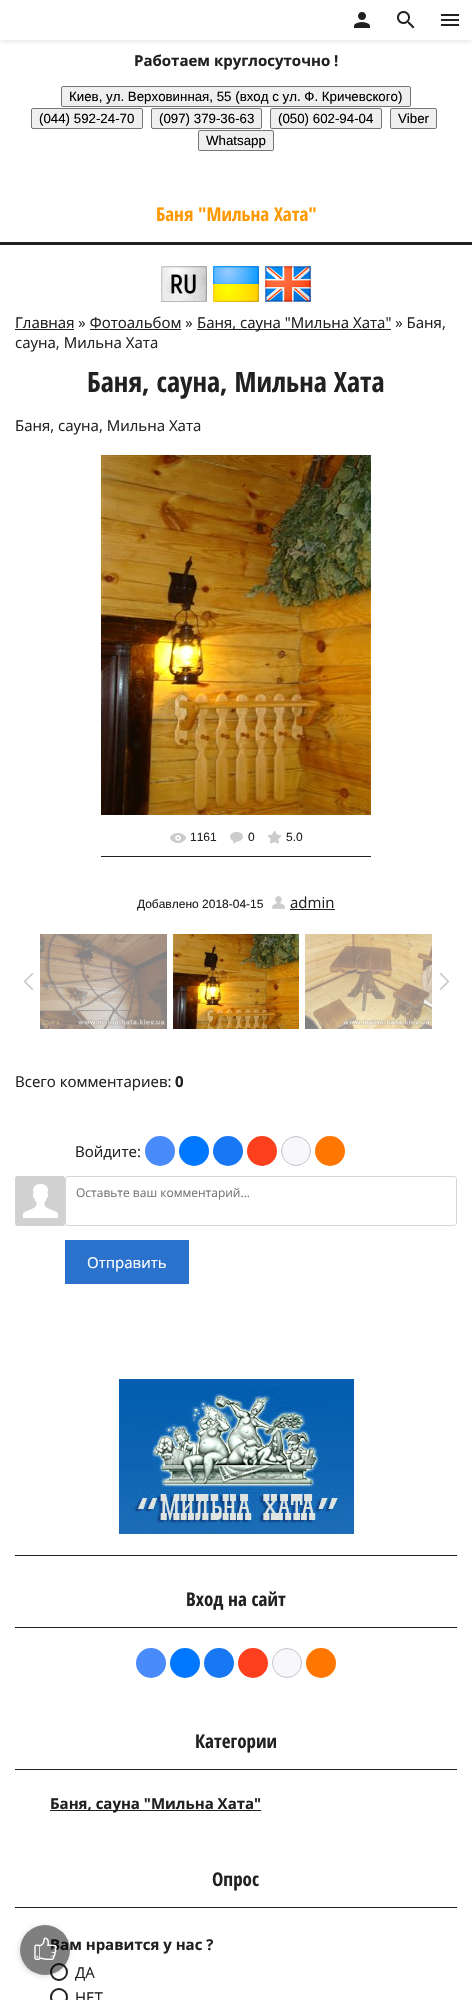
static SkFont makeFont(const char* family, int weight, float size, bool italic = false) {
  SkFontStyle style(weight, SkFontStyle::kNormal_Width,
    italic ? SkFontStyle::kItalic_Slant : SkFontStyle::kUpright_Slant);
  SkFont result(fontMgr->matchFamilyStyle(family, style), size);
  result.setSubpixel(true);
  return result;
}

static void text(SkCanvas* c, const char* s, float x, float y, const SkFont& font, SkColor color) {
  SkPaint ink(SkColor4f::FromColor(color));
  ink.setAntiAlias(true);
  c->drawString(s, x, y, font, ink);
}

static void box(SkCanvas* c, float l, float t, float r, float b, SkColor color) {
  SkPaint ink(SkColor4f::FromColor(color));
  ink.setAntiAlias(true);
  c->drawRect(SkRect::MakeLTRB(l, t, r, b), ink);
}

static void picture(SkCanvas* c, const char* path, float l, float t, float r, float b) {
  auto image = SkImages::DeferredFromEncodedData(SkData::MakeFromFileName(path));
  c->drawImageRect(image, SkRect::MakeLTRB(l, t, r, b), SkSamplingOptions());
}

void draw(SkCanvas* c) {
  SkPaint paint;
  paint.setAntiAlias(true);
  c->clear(0xffffffff);
  box(c, 0, 242, 472, 245, 0xff212121);
  c->save();
  c->clipRect(SkRect::MakeLTRB(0, 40, 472, 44));
  paint.setColor(0x1a302500);
  paint.setMaskFilter(SkMaskFilter::MakeBlur(kNormal_SkBlurStyle, 2.5f));
  c->drawRect(SkRect::MakeLTRB(0, 2, 472, 42), paint);
  paint.setMaskFilter(nullptr);
  c->restore();
  picture(c, "img_01.png", 354, 12, 370, 28);
  picture(c, "img_02.png", 397, 11, 415, 29);
  picture(c, "img_03.png", 441, 14, 459, 26);
  SkFont face1 = makeFont("Open Sans", 700, 15);
  text(c, "Работаем круглосуточно !", 134, 66, face1, 0xff212121);
  paint.setColor(0xffefefef);
  c->drawRoundRect(SkRect::MakeLTRB(61.5f, 86.5f, 410.5f, 106.5f), 1.5f, 1.5f, paint);
  paint.setStyle(SkPaint::kStroke_Style);
  paint.setStrokeWidth(1);
  paint.setColor(0xff767676);
  c->drawRoundRect(SkRect::MakeLTRB(61.5f, 86.5f, 410.5f, 106.5f), 1.5f, 1.5f, paint);
  SkFont face2 = makeFont("Liberation Sans", 400, 13.3f);
  text(c, "Киев, ул. Верховинная, 55 (вход с ул. Ф. Кричевского)", 69, 101, face2, 0xff000000);
  paint.setStyle(SkPaint::kFill_Style);
  paint.setColor(0xffefefef);
  c->drawRoundRect(SkRect::MakeLTRB(31.5f, 108.5f, 142.5f, 128.5f), 1.5f, 1.5f, paint);
  paint.setStyle(SkPaint::kStroke_Style);
  paint.setColor(0xff767676);
  c->drawRoundRect(SkRect::MakeLTRB(31.5f, 108.5f, 142.5f, 128.5f), 1.5f, 1.5f, paint);
  text(c, "(044) 592-24-70", 39, 123, face2, 0xff000000);
  paint.setStyle(SkPaint::kFill_Style);
  paint.setColor(0xffefefef);
  c->drawRoundRect(SkRect::MakeLTRB(151.5f, 108.5f, 261.5f, 128.5f), 1.5f, 1.5f, paint);
  paint.setStyle(SkPaint::kStroke_Style);
  paint.setColor(0xff767676);
  c->drawRoundRect(SkRect::MakeLTRB(151.5f, 108.5f, 261.5f, 128.5f), 1.5f, 1.5f, paint);
  text(c, "(097) 379-36-63", 159, 123, face2, 0xff000000);
  paint.setStyle(SkPaint::kFill_Style);
  paint.setColor(0xffefefef);
  c->drawRoundRect(SkRect::MakeLTRB(270.5f, 108.5f, 381.5f, 128.5f), 1.5f, 1.5f, paint);
  paint.setStyle(SkPaint::kStroke_Style);
  paint.setColor(0xff767676);
  c->drawRoundRect(SkRect::MakeLTRB(270.5f, 108.5f, 381.5f, 128.5f), 1.5f, 1.5f, paint);
  text(c, "(050) 602-94-04", 278, 123, face2, 0xff000000);
  paint.setStyle(SkPaint::kFill_Style);
  paint.setColor(0xffefefef);
  c->drawRoundRect(SkRect::MakeLTRB(390.5f, 108.5f, 436.5f, 128.5f), 1.5f, 1.5f, paint);
  paint.setStyle(SkPaint::kStroke_Style);
  paint.setColor(0xff767676);
  c->drawRoundRect(SkRect::MakeLTRB(390.5f, 108.5f, 436.5f, 128.5f), 1.5f, 1.5f, paint);
  text(c, "Viber", 398, 123, face2, 0xff000000);
  paint.setStyle(SkPaint::kFill_Style);
  paint.setColor(0xffefefef);
  c->drawRoundRect(SkRect::MakeLTRB(198.5f, 130.5f, 273.5f, 150.5f), 1.5f, 1.5f, paint);
  paint.setStyle(SkPaint::kStroke_Style);
  paint.setColor(0xff767676);
  c->drawRoundRect(SkRect::MakeLTRB(198.5f, 130.5f, 273.5f, 150.5f), 1.5f, 1.5f, paint);
  text(c, "Whatsapp", 206, 145, face2, 0xff000000);
  SkFont face3 = makeFont("Open Sans Condensed", 700, 19);
  text(c, "Баня \"Мильна Хата\"", 156, 221, face3, 0xffff9900);
  picture(c, "img_04.png", 161, 266, 207, 302);
  picture(c, "img_05.png", 213, 266, 259, 302);
  picture(c, "img_06.png", 265, 266, 311, 302);
  SkFont face4 = makeFont("Open Sans", 400, 15);
  text(c, "Главная » Фотоальбом »", 15, 328, face4, 0xff212121);
  box(c, 15, 329, 74, 330, 0xff212121);
  box(c, 197, 329, 391, 330, 0xff212121);
  text(c, "Баня, сауна \"Мильна Хата\" » Баня,", 197, 328, face4, 0xff212121);
  box(c, 90, 329, 181, 330, 0xff212121);
  text(c, "сауна, Мильна Хата", 15, 348, face4, 0xff212121);
  SkFont face5 = makeFont("Open Sans Condensed", 700, 28);
  text(c, "Баня, сауна, Мильна Хата", 87, 392, face5, 0xff212121);
  text(c, "Баня, сауна, Мильна Хата", 15, 431, face4, 0xff212121);
  picture(c, "img_07.png", 101, 455, 371, 815);
  picture(c, "img_08.png", 170, 833, 186, 843);
  SkFont face6 = makeFont("Liberation Sans", 400, 12);
  text(c, "1161", 190, 841, face6, 0xff212121);
  picture(c, "img_09.png", 230, 832, 243, 844);
  text(c, "0", 248, 841, face6, 0xff212121);
  picture(c, "img_10.png", 268, 831, 281, 844);
  text(c, "5.0", 286, 841, face6, 0xff212121);
  box(c, 101, 856, 371, 857, 0xff212121);
  text(c, "Добавлено 2018-04-15", 137, 908, face6, 0xff212121);
  picture(c, "img_11.png", 272, 896, 285, 909);
  text(c, "admin", 290, 908, face4, 0xff212121);
  box(c, 290, 909, 335, 910, 0xff212121);
  picture(c, "img_12.png", 23, 973, 34, 990);
  picture(c, "img_13.png", 40, 934, 167, 1029);
  picture(c, "img_14.png", 173, 934, 299, 1029);
  picture(c, "img_15.png", 305, 934, 432, 1029);
  picture(c, "img_16.png", 439, 973, 450, 990);
  text(c, "Всего комментариев:", 15, 1087, face4, 0xff212121);
  text(c, "0", 175, 1087, face1, 0xff212121);
  text(c, "Войдите:", 75, 1157, face4, 0xff212121);
  paint.setStyle(SkPaint::kFill_Style);
  paint.setColor(0xff498bfa);
  c->drawCircle(160, 1151, 15, paint);
  paint.setColor(0xff0077ff);
  c->drawCircle(194, 1151, 15, paint);
  paint.setColor(0xff1877f2);
  c->drawCircle(228, 1151, 15, paint);
  paint.setColor(0xfffc3f1d);
  c->drawCircle(262, 1151, 15, paint);
  paint.setColor(0xfff8f8fc);
  c->drawCircle(296, 1151, 14.5f, paint);
  paint.setStyle(SkPaint::kStroke_Style);
  paint.setColor(0xffc4c4c4);
  c->drawCircle(296, 1151, 14.5f, paint);
  paint.setStyle(SkPaint::kFill_Style);
  paint.setColor(0xffff7700);
  c->drawCircle(330, 1151, 15, paint);
  picture(c, "img_17.png", 15, 1176, 65, 1226);
  paint.setStyle(SkPaint::kStroke_Style);
  paint.setColor(0xffd6d6d6);
  c->drawRoundRect(SkRect::MakeLTRB(65.5f, 1176.5f, 456.5f, 1225.5f), 2.5f, 2.5f, paint);
  SkFont face7 = makeFont("Open Sans", 400, 12);
  text(c, "Оставьте ваш комментарий...", 76, 1197, face7, 0xff757575);
  box(c, 65, 1240, 189, 1284, 0xff2a72cc);
  text(c, "Отправить", 87, 1268, face4, 0xffffffff);
  box(c, 15, 1555, 457, 1556, 0xff212121);
  picture(c, "img_18.png", 119, 1379, 354, 1534);
  box(c, 15, 1627, 457, 1628, 0xff212121);
  text(c, "Вход на сайт", 186, 1606, face3, 0xff212121);
  paint.setStyle(SkPaint::kFill_Style);
  paint.setColor(0xff498bfa);
  c->drawCircle(151, 1663, 15, paint);
  paint.setColor(0xff0077ff);
  c->drawCircle(185, 1663, 15, paint);
  paint.setColor(0xff1877f2);
  c->drawCircle(219, 1663, 15, paint);
  paint.setColor(0xfffc3f1d);
  c->drawCircle(253, 1663, 15, paint);
  paint.setColor(0xfff8f8fc);
  c->drawCircle(287, 1663, 14.5f, paint);
  paint.setStyle(SkPaint::kStroke_Style);
  paint.setColor(0xffc4c4c4);
  c->drawCircle(287, 1663, 14.5f, paint);
  paint.setStyle(SkPaint::kFill_Style);
  paint.setColor(0xffff7700);
  c->drawCircle(321, 1663, 15, paint);
  box(c, 15, 1769, 457, 1770, 0xff212121);
  text(c, "Категории", 195, 1748, face3, 0xff212121);
  box(c, 50, 1810, 261, 1811, 0xff212121);
  text(c, "Баня, сауна \"Мильна Хата\"", 50, 1809, face1, 0xff212121);
  box(c, 15, 1907, 457, 1908, 0xff212121);
  text(c, "Опрос", 212, 1886, face3, 0xff212121);
  text(c, "Вам нравится у нас ?", 50, 1950, face1, 0xff212121);
  paint.setStyle(SkPaint::kStroke_Style);
  paint.setStrokeWidth(2);
  paint.setColor(0xff212121);
  c->drawCircle(59, 1972, 8, paint);
  text(c, "ДА", 75, 1978, face4, 0xff212121);
  c->drawCircle(59, 1997, 8, paint);
  text(c, "НЕТ", 75, 2003, face4, 0xff212121);
  c->save();
  c->clipPath(SkPathBuilder(SkPathFillType::kEvenOdd).moveTo(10, 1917).lineTo(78, 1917).lineTo(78, 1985).lineTo(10, 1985).close().moveTo(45, 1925).cubicTo(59, 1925, 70, 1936, 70, 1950).cubicTo(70, 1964, 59, 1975, 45, 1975).cubicTo(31, 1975, 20, 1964, 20, 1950).cubicTo(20, 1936, 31, 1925, 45, 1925).close().detach(), true);
  paint.setStyle(SkPaint::kFill_Style);
  paint.setColor(0x26000000);
  paint.setMaskFilter(SkMaskFilter::MakeBlur(kNormal_SkBlurStyle, 2.5f));
  c->drawRoundRect(SkRect::MakeLTRB(19, 1926, 69, 1976), 25, 25, paint);
  paint.setMaskFilter(nullptr);
  c->restore();
  paint.setColor(0x80000000);
  c->drawCircle(45, 1950, 25, paint);
  picture(c, "img_19.png", 34, 1937, 57, 1960);
}
